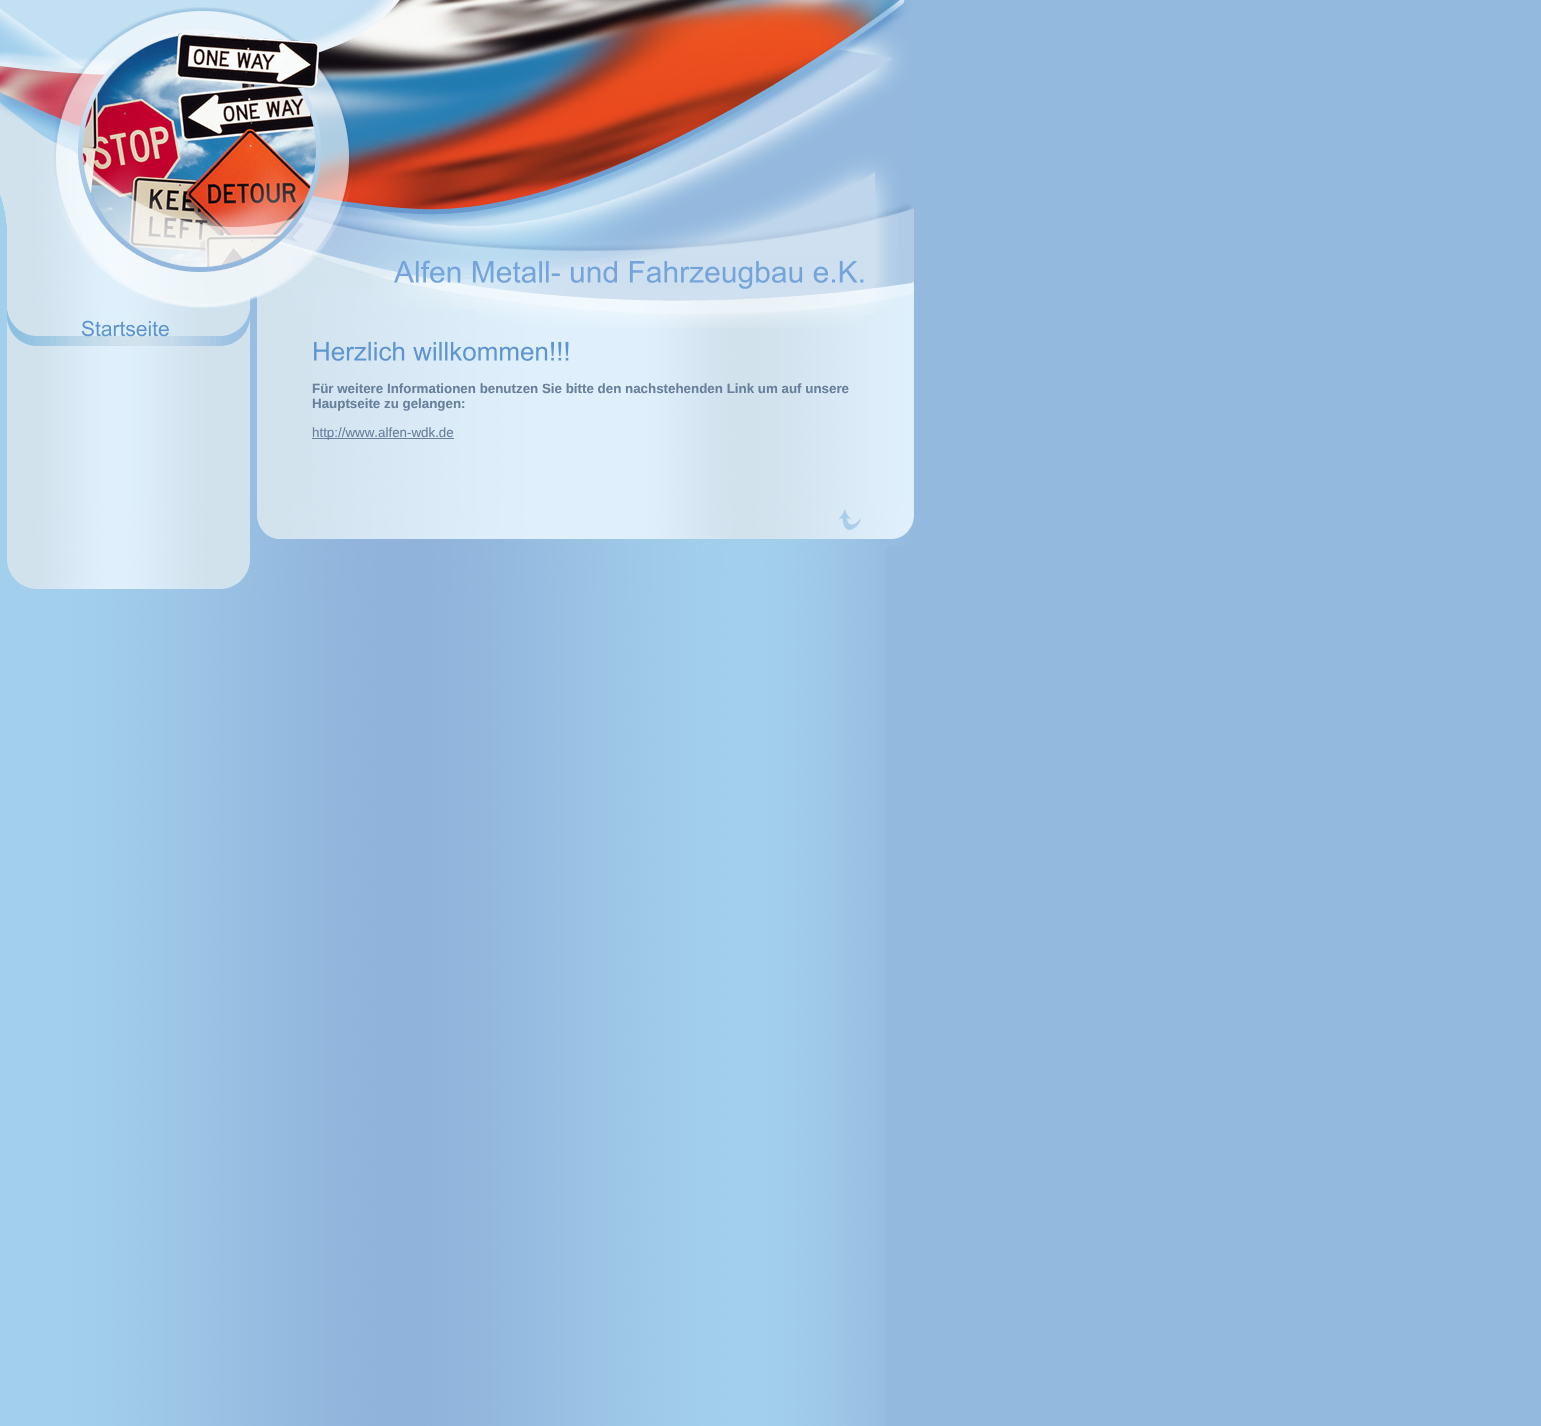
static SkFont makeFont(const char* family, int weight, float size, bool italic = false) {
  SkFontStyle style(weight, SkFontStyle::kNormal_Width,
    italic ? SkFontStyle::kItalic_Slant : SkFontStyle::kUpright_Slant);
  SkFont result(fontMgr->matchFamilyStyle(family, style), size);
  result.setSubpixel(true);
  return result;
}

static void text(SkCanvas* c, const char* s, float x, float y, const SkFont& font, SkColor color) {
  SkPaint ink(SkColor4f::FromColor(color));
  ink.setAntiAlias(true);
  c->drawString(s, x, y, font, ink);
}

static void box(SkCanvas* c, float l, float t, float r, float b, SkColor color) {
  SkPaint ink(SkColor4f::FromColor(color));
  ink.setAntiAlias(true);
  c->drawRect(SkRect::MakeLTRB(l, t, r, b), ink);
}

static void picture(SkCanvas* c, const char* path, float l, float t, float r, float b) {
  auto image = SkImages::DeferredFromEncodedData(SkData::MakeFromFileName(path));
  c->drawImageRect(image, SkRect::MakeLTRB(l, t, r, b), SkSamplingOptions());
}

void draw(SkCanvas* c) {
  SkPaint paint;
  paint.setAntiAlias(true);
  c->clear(0xff94b9de);
  picture(c, "img_01.png", 0, 310, 886, 1426);
  picture(c, "img_02.png", 0, 0, 47, 310);
  picture(c, "img_03.png", 47, 0, 357, 254);
  picture(c, "img_04.png", 357, 0, 915, 254);
  picture(c, "img_05.png", 47, 254, 293, 310);
  picture(c, "img_06.png", 293, 254, 864, 289);
  picture(c, "img_07.png", 864, 254, 914, 310);
  picture(c, "img_08.png", 293, 289, 864, 310);
  picture(c, "img_09.png", 7, 346, 250, 502);
  picture(c, "img_10.png", 7, 310, 250, 346);
  box(c, 257, 310, 312, 502, 0xffd2e3ee);
  picture(c, "img_11.png", 250, 310, 251, 350);
  picture(c, "img_12.png", 312, 310, 864, 502);
  picture(c, "img_13.png", 476, 310, 864, 328);
  picture(c, "img_14.png", 314, 341, 569, 361);
  SkFont face1 = makeFont("Liberation Sans", 700, 13.35f);
  text(c, "Für weitere Informationen benutzen Sie bitte den nachstehenden Link um auf unsere", 312, 393, face1, 0xff68809c);
  text(c, "Hauptseite zu gelangen:", 312, 408, face1, 0xff68809c);
  box(c, 312, 438, 454, 439, 0xff68809c);
  SkFont face2 = makeFont("Liberation Sans", 400, 13.35f);
  text(c, "http://www.alfen-wdk.de", 312, 437, face2, 0xff68809c);
  picture(c, "img_15.png", 864, 310, 914, 502);
  box(c, 864, 310, 874, 315, 0xffe1eff9);
  picture(c, "img_16.png", 7, 502, 914, 506);
  picture(c, "img_17.png", 5, 506, 835, 593);
  picture(c, "img_18.png", 835, 506, 864, 534);
  picture(c, "img_19.png", 864, 506, 918, 546);
  picture(c, "img_20.png", 835, 534, 864, 539);
}
